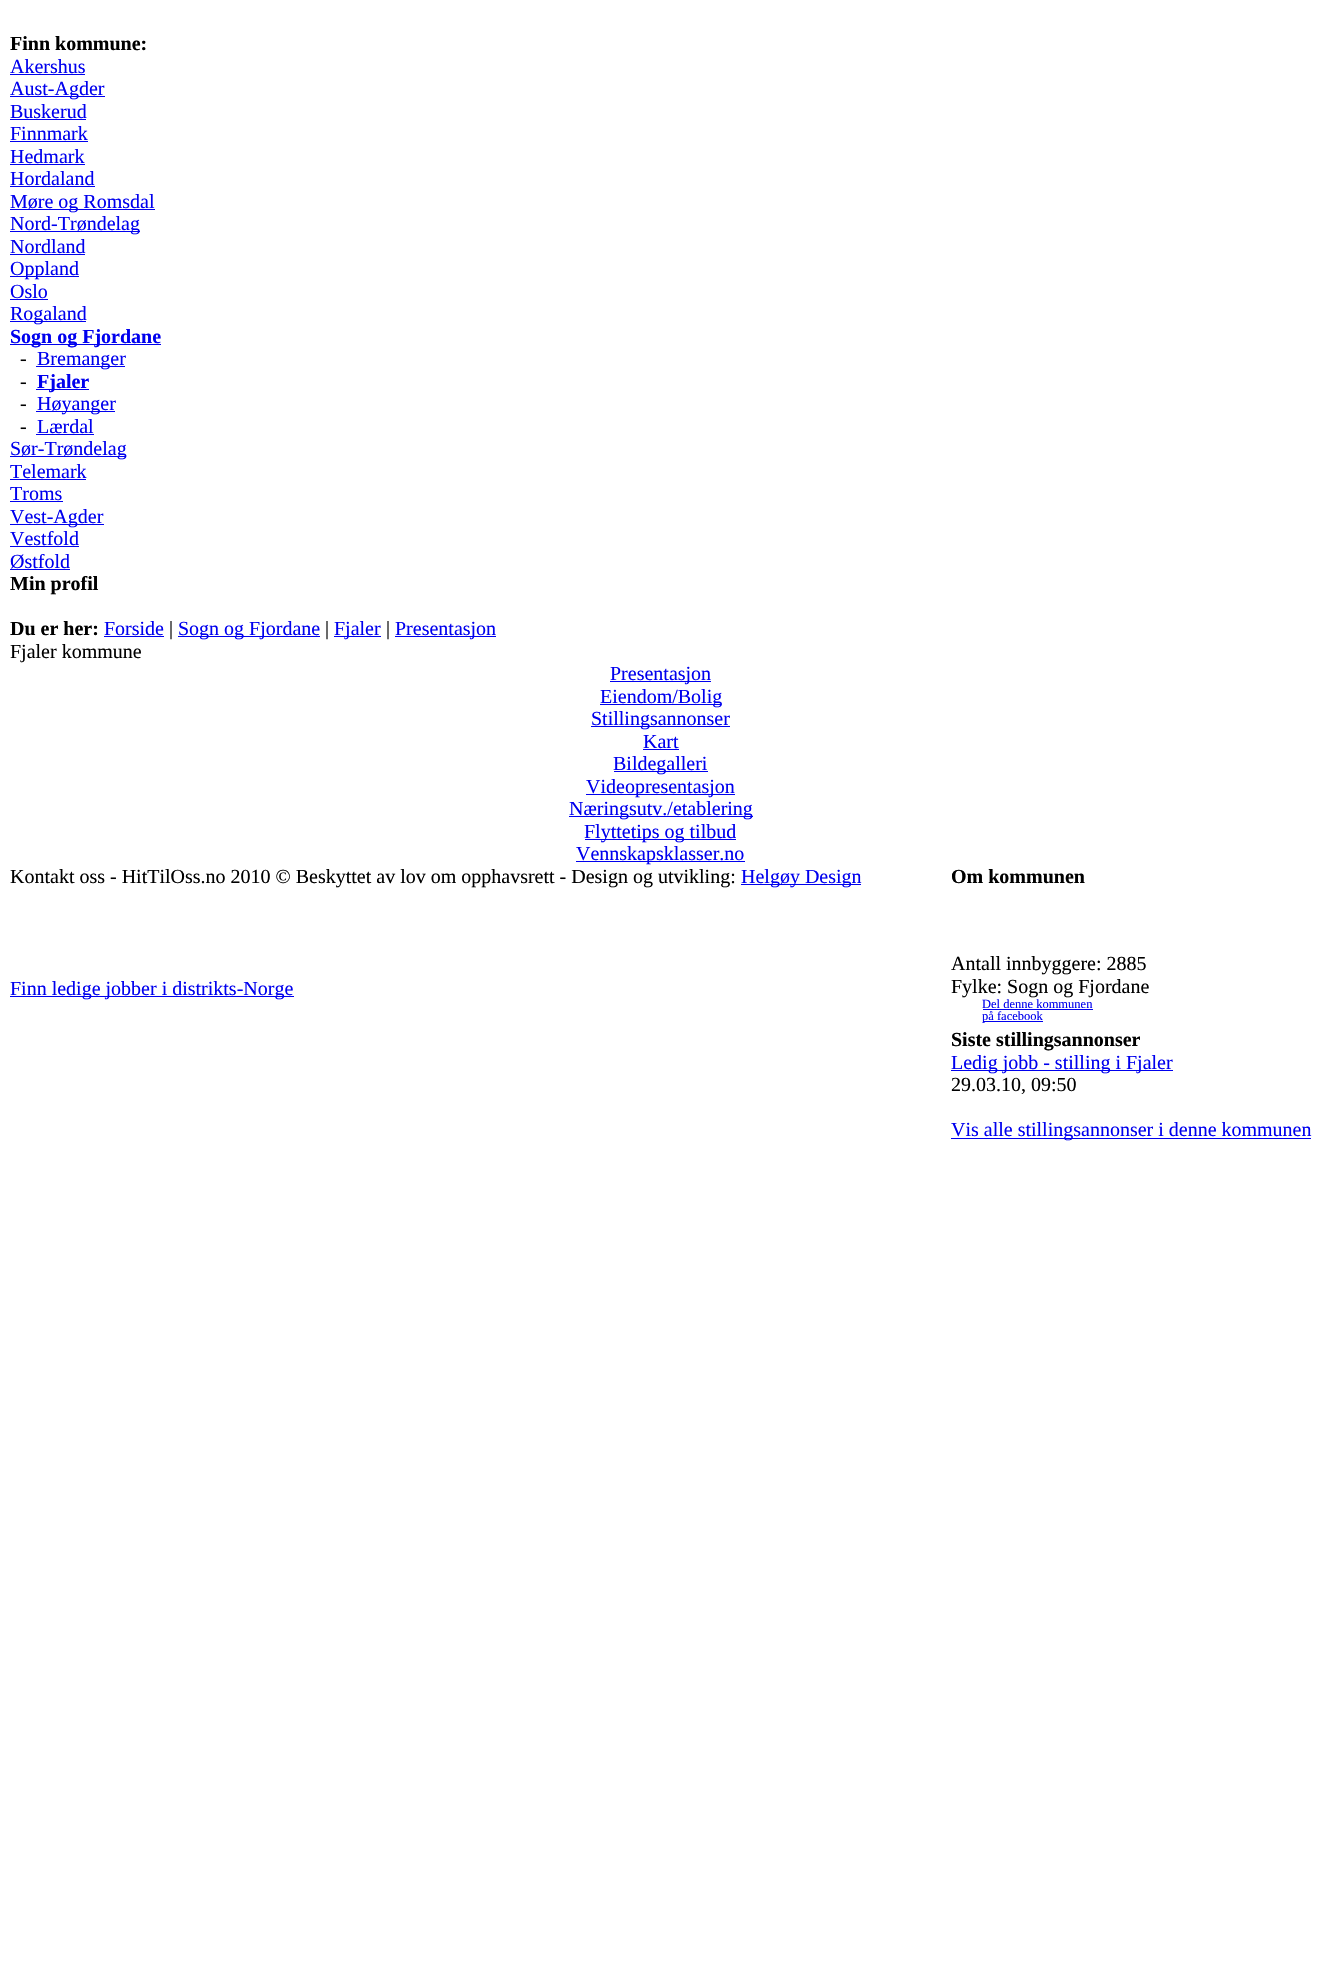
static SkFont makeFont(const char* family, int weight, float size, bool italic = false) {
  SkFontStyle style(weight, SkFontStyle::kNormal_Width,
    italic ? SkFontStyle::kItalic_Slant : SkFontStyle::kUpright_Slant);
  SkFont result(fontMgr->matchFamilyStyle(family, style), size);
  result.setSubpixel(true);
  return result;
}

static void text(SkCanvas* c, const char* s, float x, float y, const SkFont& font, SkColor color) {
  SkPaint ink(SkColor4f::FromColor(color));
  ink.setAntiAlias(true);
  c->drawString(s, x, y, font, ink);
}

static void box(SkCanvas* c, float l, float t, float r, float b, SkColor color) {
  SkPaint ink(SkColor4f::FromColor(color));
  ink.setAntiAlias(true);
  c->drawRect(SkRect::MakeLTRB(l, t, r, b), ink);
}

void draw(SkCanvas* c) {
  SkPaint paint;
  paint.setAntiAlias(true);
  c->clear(0xffffffff);
  SkFont face1 = makeFont("Liberation Serif", 700, 20);
  text(c, "Finn kommune:", 10, 50, face1, 0xff000000);
  SkFont face2 = makeFont("Liberation Serif", 400, 20);
  text(c, "Akershus", 10, 73, face2, 0xff0000ee);
  box(c, 10, 74, 85, 75, 0xff0000ee);
  box(c, 10, 96, 105, 97, 0xff0000ee);
  text(c, "Aust-Agder", 10, 95, face2, 0xff0000ee);
  text(c, "Buskerud", 10, 118, face2, 0xff0000ee);
  box(c, 10, 119, 86, 120, 0xff0000ee);
  text(c, "Finnmark", 10, 140, face2, 0xff0000ee);
  box(c, 10, 141, 88, 142, 0xff0000ee);
  text(c, "Hedmark", 10, 163, face2, 0xff0000ee);
  box(c, 10, 164, 85, 165, 0xff0000ee);
  text(c, "Hordaland", 10, 185, face2, 0xff0000ee);
  box(c, 10, 186, 95, 187, 0xff0000ee);
  box(c, 10, 209, 155, 210, 0xff0000ee);
  text(c, "Møre og Romsdal", 10, 208, face2, 0xff0000ee);
  box(c, 10, 231, 140, 232, 0xff0000ee);
  text(c, "Nord-Trøndelag", 10, 230, face2, 0xff0000ee);
  text(c, "Nordland", 10, 253, face2, 0xff0000ee);
  box(c, 10, 254, 85, 255, 0xff0000ee);
  box(c, 10, 276, 79, 277, 0xff0000ee);
  text(c, "Oppland", 10, 275, face2, 0xff0000ee);
  text(c, "Oslo", 10, 298, face2, 0xff0000ee);
  box(c, 10, 299, 48, 300, 0xff0000ee);
  box(c, 10, 321, 86, 322, 0xff0000ee);
  text(c, "Rogaland", 10, 320, face2, 0xff0000ee);
  box(c, 10, 344, 161, 345, 0xff0000ee);
  text(c, "Sogn og Fjordane", 10, 343, face1, 0xff0000ee);
  text(c, "-", 20, 365, face2, 0xff000000);
  box(c, 36, 366, 125, 367, 0xff0000ee);
  text(c, "Bremanger", 37, 365, face2, 0xff0000ee);
  text(c, "-", 20, 388, face2, 0xff000000);
  box(c, 36, 389, 89, 390, 0xff0000ee);
  text(c, "Fjaler", 37, 388, face1, 0xff0000ee);
  text(c, "-", 20, 410, face2, 0xff000000);
  box(c, 36, 411, 115, 412, 0xff0000ee);
  text(c, "Høyanger", 37, 410, face2, 0xff0000ee);
  text(c, "-", 20, 433, face2, 0xff000000);
  text(c, "Lærdal", 37, 433, face2, 0xff0000ee);
  box(c, 36, 434, 94, 435, 0xff0000ee);
  box(c, 10, 456, 126, 457, 0xff0000ee);
  text(c, "Sør-Trøndelag", 10, 455, face2, 0xff0000ee);
  text(c, "Telemark", 10, 478, face2, 0xff0000ee);
  box(c, 10, 479, 86, 480, 0xff0000ee);
  text(c, "Troms", 10, 500, face2, 0xff0000ee);
  box(c, 10, 501, 63, 502, 0xff0000ee);
  box(c, 10, 524, 104, 525, 0xff0000ee);
  text(c, "Vest-Agder", 10, 523, face2, 0xff0000ee);
  text(c, "Vestfold", 10, 545, face2, 0xff0000ee);
  box(c, 10, 546, 79, 547, 0xff0000ee);
  text(c, "Østfold", 10, 568, face2, 0xff0000ee);
  box(c, 10, 569, 70, 570, 0xff0000ee);
  text(c, "Min profil", 10, 590, face1, 0xff000000);
  text(c, "Du er her:", 10, 635, face1, 0xff000000);
  text(c, "Forside", 104, 635, face2, 0xff0000ee);
  box(c, 104, 636, 164, 637, 0xff0000ee);
  text(c, "|", 169, 635, face2, 0xff000000);
  box(c, 178, 636, 320, 637, 0xff0000ee);
  text(c, "Sogn og Fjordane", 178, 635, face2, 0xff0000ee);
  text(c, "|", 325, 635, face2, 0xff000000);
  box(c, 334, 636, 381, 637, 0xff0000ee);
  text(c, "Fjaler", 334, 635, face2, 0xff0000ee);
  text(c, "|", 386, 635, face2, 0xff000000);
  box(c, 395, 636, 496, 637, 0xff0000ee);
  text(c, "Presentasjon", 395, 635, face2, 0xff0000ee);
  text(c, "Fjaler kommune", 10, 658, face2, 0xff000000);
  box(c, 610, 681, 711, 682, 0xff0000ee);
  text(c, "Presentasjon", 610, 680, face2, 0xff0000ee);
  box(c, 600, 704, 721, 705, 0xff0000ee);
  text(c, "Eiendom/Bolig", 600, 703, face2, 0xff0000ee);
  box(c, 591, 726, 730, 727, 0xff0000ee);
  text(c, "Stillingsannonser", 591, 725, face2, 0xff0000ee);
  text(c, "Kart", 643, 748, face2, 0xff0000ee);
  box(c, 643, 749, 679, 750, 0xff0000ee);
  box(c, 614, 771, 708, 772, 0xff0000ee);
  text(c, "Bildegalleri", 613, 770, face2, 0xff0000ee);
  box(c, 586, 794, 735, 795, 0xff0000ee);
  text(c, "Videopresentasjon", 586, 793, face2, 0xff0000ee);
  box(c, 569, 816, 753, 817, 0xff0000ee);
  text(c, "Næringsutv./etablering", 569, 815, face2, 0xff0000ee);
  box(c, 585, 839, 736, 840, 0xff0000ee);
  text(c, "Flyttetips og tilbud", 584, 838, face2, 0xff0000ee);
  box(c, 576, 861, 745, 862, 0xff0000ee);
  text(c, "Vennskapsklasser.no", 576, 860, face2, 0xff0000ee);
  text(c, "Om kommunen", 951, 883, face1, 0xff000000);
  text(c, "Antall innbyggere: 2885", 951, 970, face2, 0xff000000);
  text(c, "Fylke: Sogn og Fjordane", 951, 993, face2, 0xff000000);
  SkFont face3 = makeFont("Liberation Serif", 400, 12.5f);
  text(c, "Del denne kommunen", 982, 1008, face3, 0xff0000ee);
  box(c, 983, 1009, 1093, 1010, 0xff0000ee);
  box(c, 983, 1021, 1043, 1022, 0xff0000ee);
  text(c, "på facebook", 982, 1020, face3, 0xff0000ee);
  text(c, "Siste stillingsannonser", 951, 1046, face1, 0xff000000);
  box(c, 951, 1070, 1173, 1071, 0xff0000ee);
  text(c, "Ledig jobb - stilling i Fjaler", 951, 1069, face2, 0xff0000ee);
  text(c, "29.03.10, 09:50", 951, 1091, face2, 0xff000000);
  box(c, 951, 1138, 1311, 1139, 0xff0000ee);
  text(c, "Vis alle stillingsannonser i denne kommunen", 951, 1136, face2, 0xff0000ee);
  text(c, "Kontakt oss - HitTilOss.no 2010 © Beskyttet av lov om opphavsrett - Design og utvikling:", 10, 883, face2, 0xff000000);
  box(c, 741, 884, 861, 885, 0xff0000ee);
  text(c, "Helgøy Design", 741, 883, face2, 0xff0000ee);
  box(c, 10, 996, 294, 997, 0xff0000ee);
  text(c, "Finn ledige jobber i distrikts-Norge", 10, 995, face2, 0xff0000ee);
}
